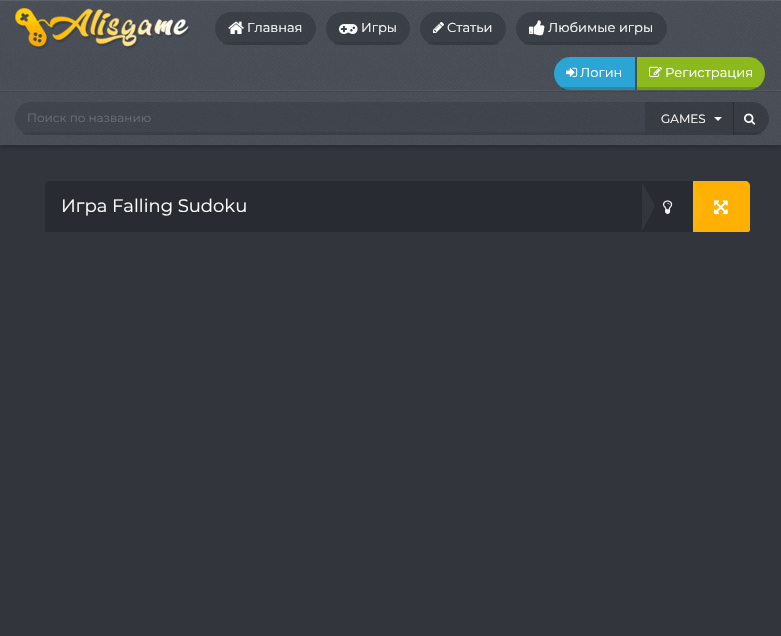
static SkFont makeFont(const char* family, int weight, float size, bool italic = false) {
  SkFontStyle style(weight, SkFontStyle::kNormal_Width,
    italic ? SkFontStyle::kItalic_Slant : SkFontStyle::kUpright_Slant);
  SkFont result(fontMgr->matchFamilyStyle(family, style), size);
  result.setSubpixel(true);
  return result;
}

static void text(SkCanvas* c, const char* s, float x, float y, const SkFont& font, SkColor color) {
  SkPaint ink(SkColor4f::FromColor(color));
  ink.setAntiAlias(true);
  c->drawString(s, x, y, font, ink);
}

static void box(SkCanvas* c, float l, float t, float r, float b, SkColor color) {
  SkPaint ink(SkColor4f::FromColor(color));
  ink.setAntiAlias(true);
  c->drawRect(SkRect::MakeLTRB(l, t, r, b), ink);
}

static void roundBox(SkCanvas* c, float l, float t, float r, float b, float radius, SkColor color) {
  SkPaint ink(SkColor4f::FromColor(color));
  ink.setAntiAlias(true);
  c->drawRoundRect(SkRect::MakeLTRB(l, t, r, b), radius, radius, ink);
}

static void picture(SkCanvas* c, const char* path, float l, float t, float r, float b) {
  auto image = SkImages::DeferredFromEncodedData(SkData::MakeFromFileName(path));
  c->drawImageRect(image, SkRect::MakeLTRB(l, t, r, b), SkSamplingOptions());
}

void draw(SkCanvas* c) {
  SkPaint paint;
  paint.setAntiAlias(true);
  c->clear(0xff32353c);
  paint.setColor(0xff26292e);
  paint.setMaskFilter(SkMaskFilter::MakeBlur(kNormal_SkBlurStyle, 2.5f));
  c->drawRect(SkRect::MakeLTRB(0, 2, 781, 147), paint);
  paint.setMaskFilter(nullptr);
  box(c, 0, 0, 781, 145, 0xff555b67);
  picture(c, "img_01.png", 0, 0, 781, 145);
  box(c, 0, 0, 781, 1, 0x1affffff);
  picture(c, "img_02.png", 15, 8, 190, 49);
  roundBox(c, 215, 12, 316, 45, 16.5f, 0x33000000);
  box(c, 223, 42, 308, 45, 0x3d26292e);
  picture(c, "img_03.png", 228, 21, 244, 34);
  SkFont face1 = makeFont("Montserrat", 100, 13);
  text(c, "Главная", 247, 32, face1, 0xffffffff);
  roundBox(c, 326, 12, 410, 45, 16.5f, 0x33000000);
  box(c, 334, 42, 402, 45, 0x3d26292e);
  picture(c, "img_04.png", 339, 24, 358, 34);
  text(c, "Игры", 361, 32, face1, 0xffffffff);
  roundBox(c, 420, 12, 506, 45, 16.5f, 0x33000000);
  box(c, 428, 42, 498, 45, 0x3d26292e);
  picture(c, "img_05.png", 433, 22, 444, 33);
  text(c, "Статьи", 447, 32, face1, 0xffffffff);
  roundBox(c, 516, 12, 667, 45, 16.5f, 0x33000000);
  box(c, 524, 42, 659, 45, 0x3d26292e);
  picture(c, "img_06.png", 529, 20, 545, 36);
  text(c, "Любимые игры", 548, 32, face1, 0xffffffff);
  paint.setColor(0xff2ba4d6);
  c->drawPath(SkPathBuilder().moveTo(570.5f, 57).lineTo(635, 57).lineTo(635, 90).lineTo(570.5f, 90).cubicTo(561.5f, 90, 554, 82.5f, 554, 73.5f).cubicTo(554, 64.5f, 561.5f, 57, 570.5f, 57).close().detach(), paint);
  box(c, 562, 87, 635, 90, 0x3d26292e);
  picture(c, "img_07.png", 566, 67, 578, 77);
  text(c, "Логин", 580, 77, face1, 0xffffffff);
  paint.setColor(0xff8cb91e);
  c->drawPath(SkPathBuilder().moveTo(637, 57).lineTo(748.5f, 57).cubicTo(757.5f, 57, 765, 64.5f, 765, 73.5f).cubicTo(765, 82.5f, 757.5f, 90, 748.5f, 90).lineTo(637, 90).close().detach(), paint);
  box(c, 637, 87, 757, 90, 0x3d26292e);
  picture(c, "img_08.png", 649, 66, 662, 77);
  text(c, "Регистрация", 665, 77, face1, 0xffffffff);
  box(c, 0, 91, 781, 92, 0x1c000000);
  box(c, 0, 90, 781, 91, 0x0dffffff);
  paint.setColor(0x1f000000);
  c->drawPath(SkPathBuilder().moveTo(31.5f, 102).lineTo(645, 102).lineTo(645, 135).lineTo(31.5f, 135).cubicTo(22.5f, 135, 15, 127.5f, 15, 118.5f).cubicTo(15, 109.5f, 22.5f, 102, 31.5f, 102).close().detach(), paint);
  box(c, 23, 132, 645, 135, 0x3d26292e);
  SkFont face2 = makeFont("Montserrat", 100, 12);
  text(c, "Поиск по названию", 27, 122, face2, 0xff6c6e72);
  paint.setColor(0x3b000000);
  c->drawPath(SkPathBuilder().moveTo(733, 102).lineTo(752.5f, 102).cubicTo(761.5f, 102, 769, 109.5f, 769, 118.5f).cubicTo(769, 127.5f, 761.5f, 135, 752.5f, 135).lineTo(733, 135).close().detach(), paint);
  box(c, 733, 132, 761, 135, 0x3d26292e);
  box(c, 645, 102, 734, 135, 0x3b000000);
  text(c, "GAMES", 661, 123, face2, 0xffffffff);
  paint.setColor(0xffffffff);
  c->drawPath(SkPathBuilder().moveTo(714, 117).lineTo(722, 117).lineTo(718, 121).close().detach(), paint);
  picture(c, "img_09.png", 744, 113, 756, 125);
  paint.setColor(0xff282b31);
  c->drawPath(SkPathBuilder().moveTo(50, 181).lineTo(745, 181).cubicTo(748, 181, 750, 183, 750, 186).lineTo(750, 232).lineTo(45, 232).lineTo(45, 186).cubicTo(45, 183, 47, 181, 50, 181).close().detach(), paint);
  SkFont face3 = makeFont("Montserrat", 100, 18);
  text(c, "Игра Falling Sudoku", 61, 212, face3, 0xffffffff);
  paint.setColor(0xff33363b);
  c->drawPath(SkPathBuilder().moveTo(642, 231).lineTo(655, 206).lineTo(642, 182).cubicTo(642, 183, 642, 230, 642, 231).close().detach(), paint);
  picture(c, "img_10.png", 663, 200, 673, 215);
  paint.setColor(0xffffb000);
  c->drawPath(SkPathBuilder().moveTo(693, 181).lineTo(745, 181).cubicTo(748, 181, 750, 183, 750, 186).lineTo(750, 230).cubicTo(750, 231, 749, 232, 748, 232).lineTo(693, 232).close().detach(), paint);
  paint.setColor(0xffffb40d);
  c->drawPath(SkPathBuilder().moveTo(693, 181).lineTo(706, 206).lineTo(693, 232).close().detach(), paint);
  picture(c, "img_11.png", 714, 200, 728, 215);
}
